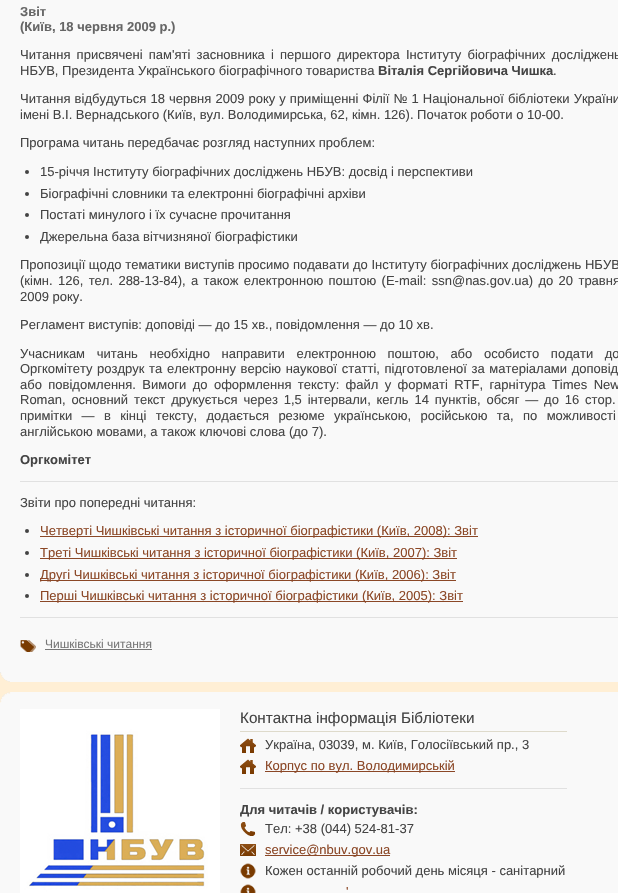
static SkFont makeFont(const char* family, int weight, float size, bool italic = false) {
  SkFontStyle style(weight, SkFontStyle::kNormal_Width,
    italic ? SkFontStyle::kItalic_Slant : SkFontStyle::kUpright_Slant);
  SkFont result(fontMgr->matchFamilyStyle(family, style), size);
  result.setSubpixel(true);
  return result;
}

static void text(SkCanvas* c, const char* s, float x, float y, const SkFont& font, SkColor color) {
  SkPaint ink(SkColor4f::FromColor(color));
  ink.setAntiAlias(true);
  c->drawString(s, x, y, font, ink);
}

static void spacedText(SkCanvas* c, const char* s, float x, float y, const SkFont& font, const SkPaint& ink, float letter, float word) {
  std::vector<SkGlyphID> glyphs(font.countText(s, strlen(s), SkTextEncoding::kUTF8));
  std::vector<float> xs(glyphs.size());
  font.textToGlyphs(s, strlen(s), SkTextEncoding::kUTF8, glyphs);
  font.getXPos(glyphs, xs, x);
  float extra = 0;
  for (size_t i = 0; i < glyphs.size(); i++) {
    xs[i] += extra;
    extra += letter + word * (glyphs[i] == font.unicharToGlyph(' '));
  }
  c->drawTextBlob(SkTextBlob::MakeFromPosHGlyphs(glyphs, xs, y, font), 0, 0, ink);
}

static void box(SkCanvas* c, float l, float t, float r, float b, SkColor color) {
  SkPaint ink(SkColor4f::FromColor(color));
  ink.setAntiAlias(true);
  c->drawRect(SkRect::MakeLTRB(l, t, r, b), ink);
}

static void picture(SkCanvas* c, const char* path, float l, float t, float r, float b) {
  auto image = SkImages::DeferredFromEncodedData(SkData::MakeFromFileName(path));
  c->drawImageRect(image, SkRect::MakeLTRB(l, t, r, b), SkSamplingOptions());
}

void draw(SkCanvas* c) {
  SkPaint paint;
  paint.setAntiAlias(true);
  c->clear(0xffffefd5);
  box(c, 0, 0, 618, 682, 0xfff9f9f9);
  picture(c, "img_01.png", 0, 672, 10, 682);
  SkFont face1 = makeFont("Liberation Sans", 700, 13);
  text(c, "Звіт", 20, 16, face1, 0xff666666);
  text(c, "(Київ, 18 червня 2009 р.)", 20, 31, face1, 0xff666666);
  SkFont face2 = makeFont("Liberation Sans", 400, 13);
  paint.setColor(0xff444444);
  spacedText(c, "Читання присвячені пам'яті засновника і першого директора Інституту біографічних досліджень", 20, 59, face2, paint, 0, 2.5f);
  text(c, "НБУВ, Президента Українського біографічного товариства", 20, 75, face2, 0xff444444);
  text(c, "Віталія Сергійовича Чишка", 378, 75, face1, 0xff444444);
  text(c, ".", 553, 75, face2, 0xff444444);
  spacedText(c, "Читання відбудуться 18 червня 2009 року у приміщенні Філії № 1 Національної бібліотеки України", 20, 103, face2, paint, 0, 0.5f);
  text(c, "імені В.І. Вернадського (Київ, вул. Володимирська, 62, кімн. 126). Початок роботи о 10-00.", 20, 119, face2, 0xff444444);
  text(c, "Програма читань передбачає розгляд наступних проблем:", 20, 147, face2, 0xff444444);
  c->drawCircle(27, 172, 2, paint);
  text(c, "15-річчя Інституту біографічних досліджень НБУВ: досвід і перспективи", 40, 176, face2, 0xff444444);
  c->drawCircle(27, 194, 2, paint);
  text(c, "Біографічні словники та електронні біографічні архіви", 40, 198, face2, 0xff444444);
  c->drawCircle(27, 215, 2, paint);
  text(c, "Постаті минулого і їх сучасне прочитання", 40, 219, face2, 0xff444444);
  c->drawCircle(27, 237, 2, paint);
  text(c, "Джерельна база вітчизняної біографістики", 40, 241, face2, 0xff444444);
  text(c, "Пропозиції щодо тематики виступів просимо подавати до Інституту біографічних досліджень НБУВ", 20, 269, face2, 0xff444444);
  spacedText(c, "(кімн. 126, тел. 288-13-84), а також електронною поштою (E-mail: ssn@nas.gov.ua) до 20 травня", 20, 285, face2, paint, 0, 1.75f);
  text(c, "2009 року.", 20, 301, face2, 0xff444444);
  text(c, "Регламент виступів: доповіді — до 15 хв., повідомлення — до 10 хв.", 20, 329, face2, 0xff444444);
  spacedText(c, "Учасникам читань необхідно направити електронною поштою, або особисто подати до", 20, 358, face2, paint, 0, 8);
  spacedText(c, "Оргкомітету роздрук та електронну версію наукової статті, підготовленої за матеріалами доповід", 20, 373, face2, paint, 0, 1);
  spacedText(c, "або повідомлення. Вимоги до оформлення тексту: файл у форматі RTF, гарнітура Times New", 20, 389, face2, paint, 0, 2.75f);
  spacedText(c, "Roman, основний текст друкується через 1,5 інтервали, кегль 14 пунктів, обсяг — до 16 стор.", 20, 404, face2, paint, 0, 2.25f);
  spacedText(c, "примітки — в кінці тексту, додається резюме українською, російською та, по можливості", 20, 420, face2, paint, 0, 5.75f);
  text(c, "англійською мовами, а також ключові слова (до 7).", 20, 436, face2, 0xff444444);
  text(c, "Оргкомітет", 20, 464, face1, 0xff444444);
  box(c, 20, 481, 618, 482, 0xffe1e1e1);
  text(c, "Звіти про попередні читання:", 20, 507, face2, 0xff444444);
  c->drawCircle(27, 531, 2, paint);
  box(c, 40, 536, 478, 537, 0xff8b4726);
  text(c, "Четверті Чишківські читання з історичної біографістики (Київ, 2008): Звіт", 40, 535, face2, 0xff8b4726);
  c->drawCircle(27, 553, 2, paint);
  box(c, 40, 558, 457, 559, 0xff8b4726);
  text(c, "Треті Чишківські читання з історичної біографістики (Київ, 2007): Звіт", 40, 557, face2, 0xff8b4726);
  c->drawCircle(27, 575, 2, paint);
  box(c, 40, 580, 456, 581, 0xff8b4726);
  text(c, "Другі Чишківські читання з історичної біографістики (Київ, 2006): Звіт", 40, 579, face2, 0xff8b4726);
  c->drawCircle(27, 596, 2, paint);
  box(c, 40, 601, 463, 602, 0xff8b4726);
  text(c, "Перші Чишківські читання з історичної біографістики (Київ, 2005): Звіт", 40, 600, face2, 0xff8b4726);
  box(c, 20, 617, 618, 618, 0xffe1e1e1);
  picture(c, "img_02.png", 20, 640, 36, 652);
  SkFont face3 = makeFont("Liberation Sans", 400, 12);
  text(c, "Чишківські читання", 45, 648, face3, 0xff777777);
  box(c, 45, 649, 152, 650, 0xff777777);
  box(c, 0, 692, 618, 893, 0xfff9f9f9);
  picture(c, "img_03.png", 0, 692, 11, 703);
  picture(c, "img_04.png", 20, 709, 220, 893);
  box(c, 240, 731, 567, 732, 0xffdedacb);
  SkFont face4 = makeFont("Liberation Sans", 400, 15.25f);
  text(c, "Контактна інформація Бібліотеки", 240, 723, face4, 0xff444444);
  picture(c, "img_05.png", 240, 738, 256, 753);
  text(c, "Україна, 03039, м. Київ, Голосіївський пр., 3", 265, 749, face2, 0xff444444);
  picture(c, "img_05.png", 240, 759, 256, 774);
  box(c, 265, 771, 455, 772, 0xff8b4726);
  text(c, "Корпус по вул. Володимирській", 265, 770, face2, 0xff8b4726);
  box(c, 240, 788, 567, 789, 0xffe1e1e1);
  text(c, "Для читачів / користувачів:", 240, 814, face1, 0xff444444);
  picture(c, "img_06.png", 240, 822, 256, 836);
  text(c, "Тел: +38 (044) 524-81-37", 265, 833, face2, 0xff444444);
  picture(c, "img_07.png", 240, 844, 256, 856);
  box(c, 265, 855, 390, 856, 0xff8b4726);
  text(c, "service@nbuv.gov.ua", 265, 854, face2, 0xff8b4726);
  picture(c, "img_08.png", 240, 863, 256, 879);
  text(c, "Кожен останній робочий день місяця - санітарний", 265, 875, face2, 0xff444444);
  picture(c, "img_09.png", 240, 884, 256, 893);
  text(c, "'", 346, 896, face2, 0xff8b4726);
}
